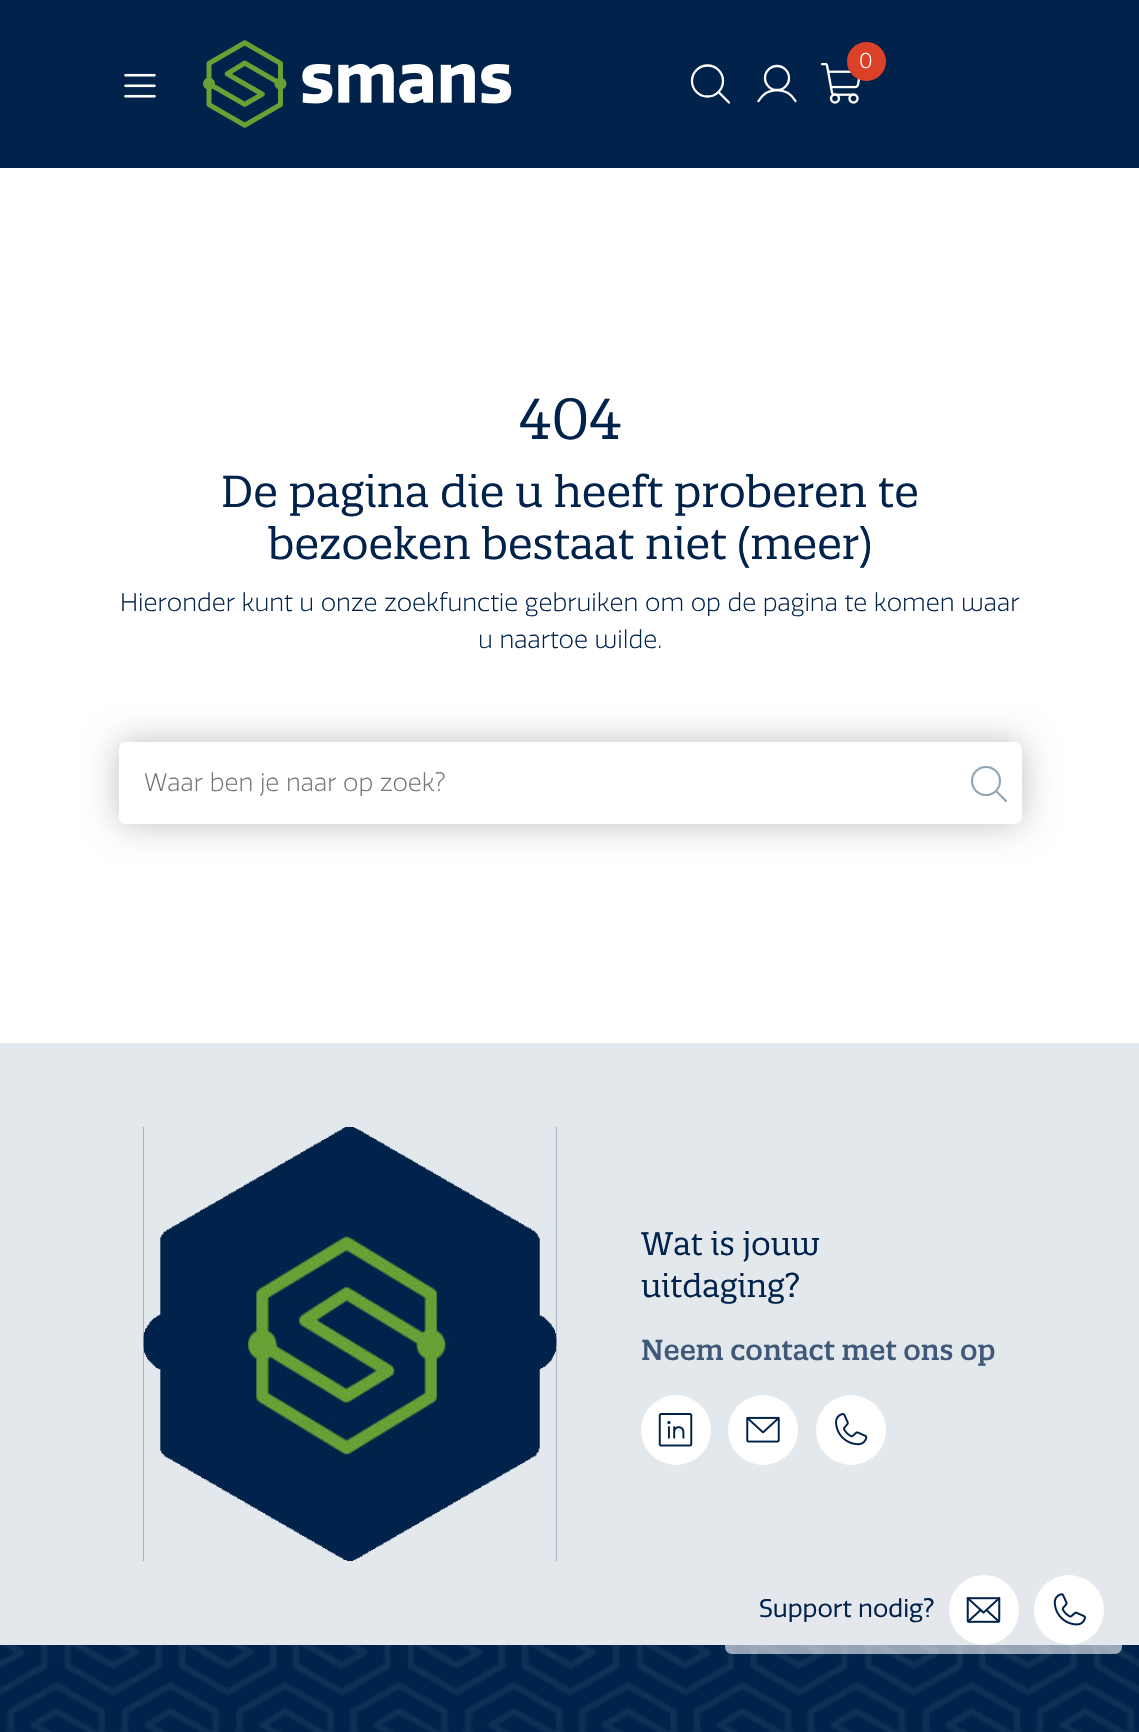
static SkFont makeFont(const char* family, int weight, float size, bool italic = false) {
  SkFontStyle style(weight, SkFontStyle::kNormal_Width,
    italic ? SkFontStyle::kItalic_Slant : SkFontStyle::kUpright_Slant);
  SkFont result(fontMgr->matchFamilyStyle(family, style), size);
  result.setSubpixel(true);
  return result;
}

static void text(SkCanvas* c, const char* s, float x, float y, const SkFont& font, SkColor color) {
  SkPaint ink(SkColor4f::FromColor(color));
  ink.setAntiAlias(true);
  c->drawString(s, x, y, font, ink);
}

static void box(SkCanvas* c, float l, float t, float r, float b, SkColor color) {
  SkPaint ink(SkColor4f::FromColor(color));
  ink.setAntiAlias(true);
  c->drawRect(SkRect::MakeLTRB(l, t, r, b), ink);
}

static void roundBox(SkCanvas* c, float l, float t, float r, float b, float radius, SkColor color) {
  SkPaint ink(SkColor4f::FromColor(color));
  ink.setAntiAlias(true);
  c->drawRoundRect(SkRect::MakeLTRB(l, t, r, b), radius, radius, ink);
}

static void picture(SkCanvas* c, const char* path, float l, float t, float r, float b) {
  auto image = SkImages::DeferredFromEncodedData(SkData::MakeFromFileName(path));
  c->drawImageRect(image, SkRect::MakeLTRB(l, t, r, b), SkSamplingOptions());
}

void draw(SkCanvas* c) {
  SkPaint paint;
  paint.setAntiAlias(true);
  c->clear(0xffffffff);
  box(c, 0, 0, 1139, 168, 0xff00224b);
  picture(c, "img_01.png", 203, 40, 512, 128);
  picture(c, "img_02.png", 820, 62, 861, 104);
  paint.setColor(0xffdb4128);
  c->drawCircle(866.5f, 61.5f, 19.5f, paint);
  SkFont face1 = makeFont("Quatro", 300, 21);
  text(c, "0", 859, 68, face1, 0xffffffff);
  paint.setStyle(SkPaint::kStroke_Style);
  paint.setStrokeWidth(2.3f);
  paint.setColor(0xffffffff);
  c->drawCircle(707.5f, 81, 15.5f, paint);
  paint.setStrokeCap(SkPaint::kRound_Cap);
  paint.setStrokeJoin(SkPaint::kRound_Join);
  c->drawPath(SkPathBuilder().moveTo(718.5f, 92).lineTo(729, 102.5f).detach(), paint);
  paint.setStrokeCap(SkPaint::kButt_Cap);
  paint.setStrokeJoin(SkPaint::kMiter_Join);
  c->drawCircle(777, 78, 12, paint);
  paint.setStrokeCap(SkPaint::kRound_Cap);
  paint.setStrokeJoin(SkPaint::kRound_Join);
  c->drawPath(SkPathBuilder().moveTo(758.5f, 101).cubicTo(767, 86.5f, 787, 86.5f, 795.5f, 101).detach(), paint);
  picture(c, "img_03.png", 124, 73, 156, 98);
  SkFont face2 = makeFont("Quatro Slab", 400, 56);
  text(c, "404", 519, 439, face2, 0xff00224b);
  SkFont face3 = makeFont("Quatro Slab", 400, 43.25f);
  text(c, "De pagina die u heeft proberen te", 221, 507, face3, 0xff00224b);
  text(c, "bezoeken bestaat niet (meer)", 268, 559, face3, 0xff00224b);
  SkFont face4 = makeFont("Quatro", 300, 24.5f);
  text(c, "Hieronder kunt u onze zoekfunctie gebruiken om op de pagina te komen waar", 120, 611, face4, 0xff00224b);
  text(c, "u naartoe wilde.", 478, 648, face4, 0xff00224b);
  paint.setStyle(SkPaint::kFill_Style);
  paint.setColor(0x40000000);
  paint.setMaskFilter(SkMaskFilter::MakeBlur(kNormal_SkBlurStyle, 17.5f));
  c->drawRoundRect(SkRect::MakeLTRB(119, 742, 1022, 824), 7, 7, paint);
  paint.setMaskFilter(nullptr);
  roundBox(c, 119, 742, 1022, 824, 7, 0xffffffff);
  text(c, "Waar ben je naar op zoek?", 144, 791, face4, 0xff757575);
  paint.setStyle(SkPaint::kStroke_Style);
  paint.setStrokeWidth(2.1f);
  paint.setStrokeCap(SkPaint::kButt_Cap);
  paint.setStrokeJoin(SkPaint::kMiter_Join);
  paint.setColor(0xff91a5b2);
  c->drawCircle(986, 781, 14, paint);
  paint.setStrokeCap(SkPaint::kRound_Cap);
  paint.setStrokeJoin(SkPaint::kRound_Join);
  c->drawPath(SkPathBuilder().moveTo(996, 791).lineTo(1006, 801).detach(), paint);
  box(c, 0, 1043, 1139, 1645, 0xffe3e8ec);
  picture(c, "img_04.png", 143, 1127, 557, 1561);
  picture(c, "img_05.png", 143, 1127, 557, 1561);
  SkFont face5 = makeFont("Quatro Slab", 400, 31.5f);
  text(c, "Wat is jouw", 641, 1255, face5, 0xff00224b);
  text(c, "uitdaging?", 641, 1297, face5, 0xff00224b);
  SkFont face6 = makeFont("Quatro Slab", 500, 28);
  text(c, "Neem contact met ons op", 641, 1360, face6, 0xff405978);
  paint.setStyle(SkPaint::kFill_Style);
  paint.setColor(0xffffffff);
  c->drawCircle(676, 1430, 35, paint);
  picture(c, "img_06.png", 658, 1413, 693, 1447);
  c->drawCircle(763, 1430, 35, paint);
  picture(c, "img_07.png", 746, 1416, 780, 1443);
  c->drawCircle(851, 1430, 35, paint);
  picture(c, "img_08.png", 835, 1413, 868, 1446);
  box(c, 0, 1645, 1139, 1732, 0xff00224b);
  picture(c, "img_11.png", 0, 1645, 1139, 1732);
  roundBox(c, 725, 1566, 1122, 1654, 7, 0xa8e3e8ec);
  SkFont face7 = makeFont("Quatro", 400, 24.5f);
  text(c, "Support nodig?", 759, 1617, face7, 0xff00224b);
  c->drawCircle(984, 1610, 35, paint);
  picture(c, "img_09.png", 966, 1597, 1001, 1623);
  c->drawCircle(1069, 1610, 35, paint);
  picture(c, "img_10.png", 1053, 1593, 1086, 1626);
}
